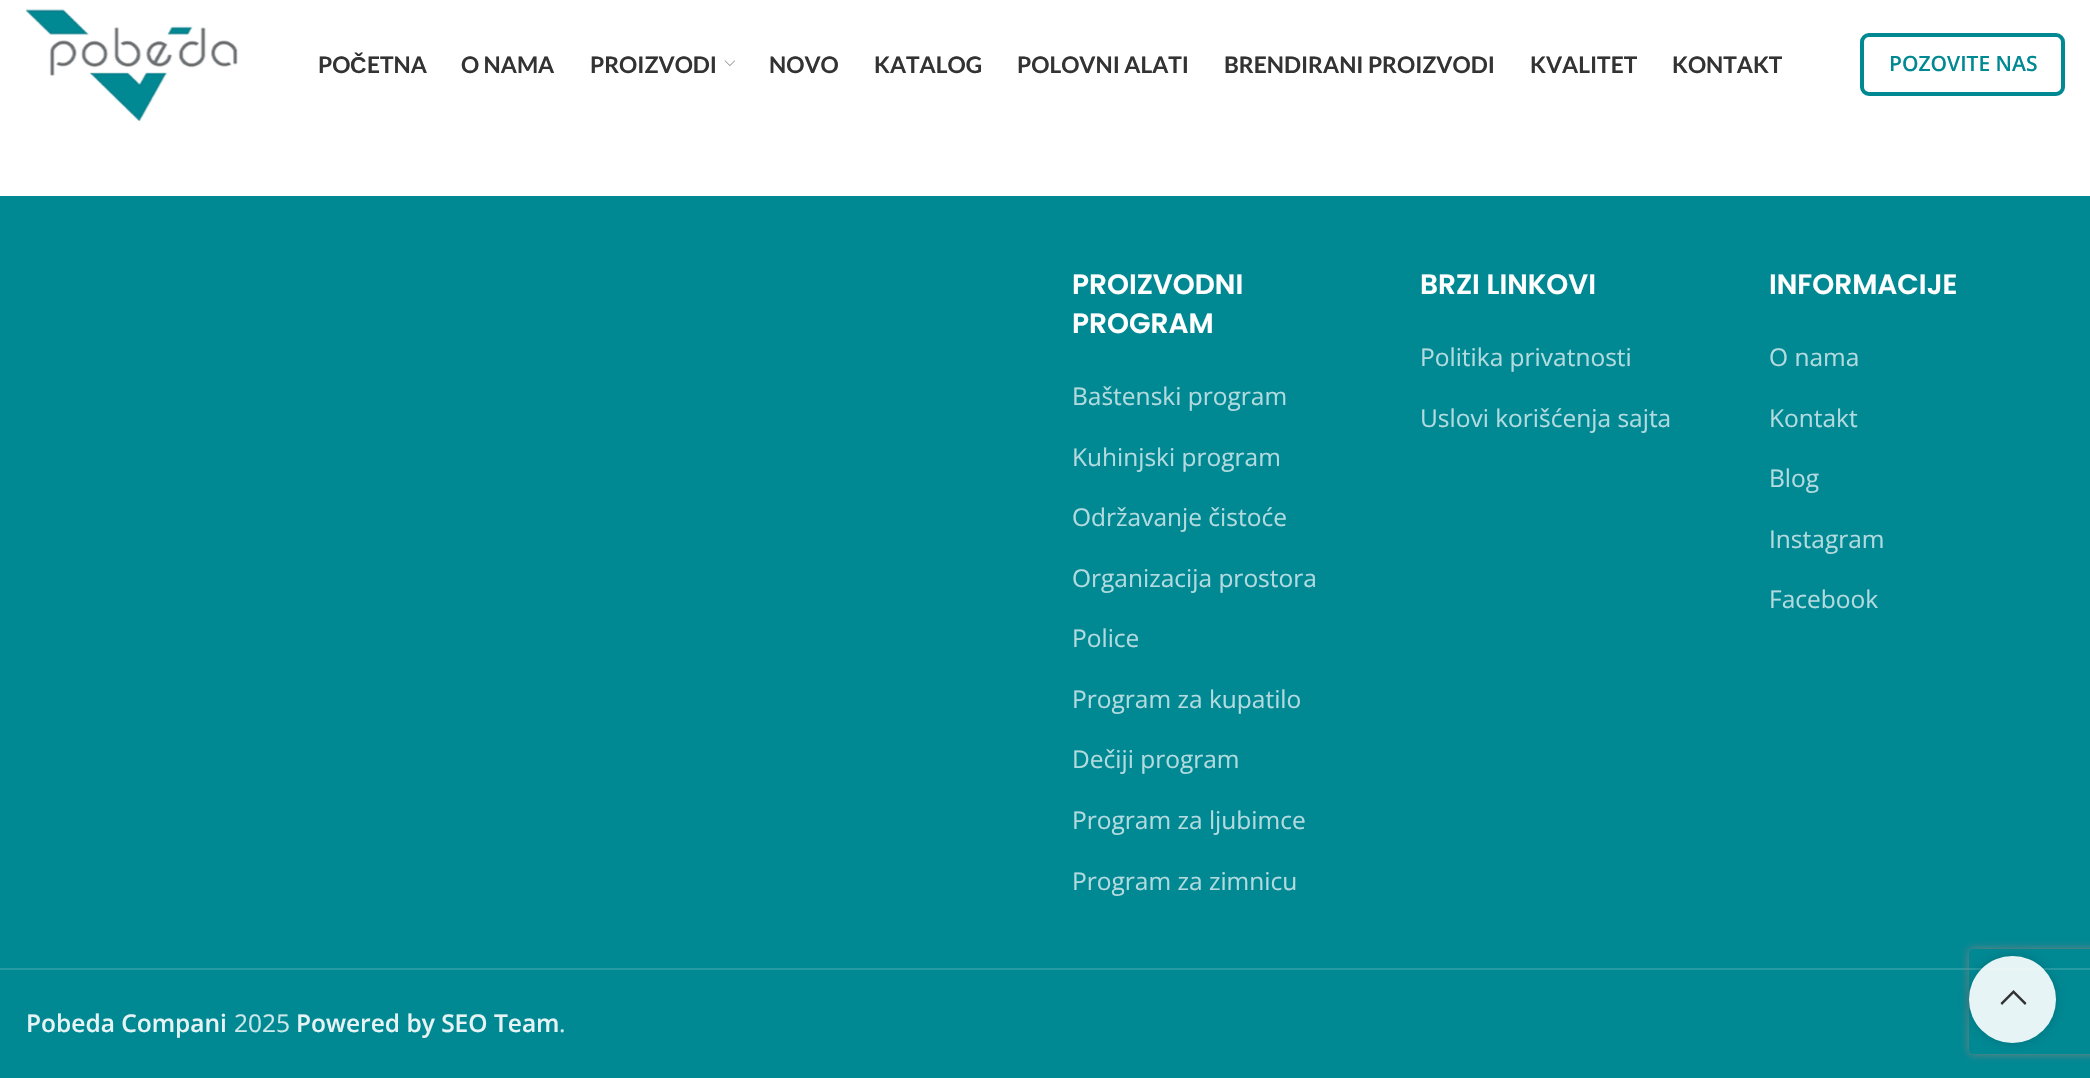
static SkFont makeFont(const char* family, int weight, float size, bool italic = false) {
  SkFontStyle style(weight, SkFontStyle::kNormal_Width,
    italic ? SkFontStyle::kItalic_Slant : SkFontStyle::kUpright_Slant);
  SkFont result(fontMgr->matchFamilyStyle(family, style), size);
  result.setSubpixel(true);
  return result;
}

static void text(SkCanvas* c, const char* s, float x, float y, const SkFont& font, SkColor color) {
  SkPaint ink(SkColor4f::FromColor(color));
  ink.setAntiAlias(true);
  c->drawString(s, x, y, font, ink);
}

static void box(SkCanvas* c, float l, float t, float r, float b, SkColor color) {
  SkPaint ink(SkColor4f::FromColor(color));
  ink.setAntiAlias(true);
  c->drawRect(SkRect::MakeLTRB(l, t, r, b), ink);
}

static void picture(SkCanvas* c, const char* path, float l, float t, float r, float b) {
  auto image = SkImages::DeferredFromEncodedData(SkData::MakeFromFileName(path));
  c->drawImageRect(image, SkRect::MakeLTRB(l, t, r, b), SkSamplingOptions());
}

void draw(SkCanvas* c) {
  SkPaint paint;
  paint.setAntiAlias(true);
  c->clear(0xffffffff);
  picture(c, "img_01.png", 26, 8, 238, 121);
  SkFont face1 = makeFont("Lato", 700, 22.75f);
  text(c, "PO", 318, 73, face1, 0xff333333);
  SkFont face2 = makeFont("Liberation Sans", 700, 22.75f);
  text(c, "Č", 350, 73, face2, 0xff333333);
  text(c, "ETNA", 367, 73, face1, 0xff333333);
  text(c, "O NAMA", 461, 73, face1, 0xff333333);
  text(c, "PROIZVODI", 590, 73, face1, 0xff333333);
  picture(c, "img_02.png", 724, 60, 735, 67);
  text(c, "NOVO", 769, 73, face1, 0xff333333);
  text(c, "KATALOG", 874, 73, face1, 0xff333333);
  text(c, "POLOVNI ALATI", 1017, 73, face1, 0xff333333);
  text(c, "BRENDIRANI PROIZVODI", 1224, 73, face1, 0xff333333);
  text(c, "KVALITET", 1530, 73, face1, 0xff333333);
  text(c, "KONTAKT", 1672, 73, face1, 0xff333333);
  paint.setStyle(SkPaint::kStroke_Style);
  paint.setStrokeWidth(4);
  paint.setColor(0xff008893);
  c->drawRoundRect(SkRect::MakeLTRB(1862, 35, 2063, 94), 7, 7, paint);
  SkFont face3 = makeFont("Open Sans", 600, 21);
  text(c, "POZOVITE NAS", 1889, 71, face3, 0xff008893);
  box(c, 0, 196, 2090, 1078, 0xff008893);
  SkFont face4 = makeFont("Poppins", 600, 28);
  text(c, "PROIZVODNI", 1072, 294, face4, 0xffffffff);
  text(c, "PROGRAM", 1072, 333, face4, 0xffffffff);
  SkFont face5 = makeFont("Open Sans", 400, 24.5f);
  text(c, "Baštenski program", 1072, 405, face5, 0xffb3dbdf);
  text(c, "Kuhinjski program", 1072, 466, face5, 0xffb3dbdf);
  text(c, "Održavanje čistoće", 1072, 526, face5, 0xffb3dbdf);
  text(c, "Organizacija prostora", 1072, 587, face5, 0xffb3dbdf);
  text(c, "Police", 1072, 647, face5, 0xffb3dbdf);
  text(c, "Program za kupatilo", 1072, 708, face5, 0xffb3dbdf);
  text(c, "Dečiji program", 1072, 768, face5, 0xffb3dbdf);
  text(c, "Program za ljubimce", 1072, 829, face5, 0xffb3dbdf);
  text(c, "Program za zimnicu", 1072, 890, face5, 0xffb3dbdf);
  text(c, "BRZI LINKOVI", 1420, 294, face4, 0xffffffff);
  text(c, "Politika privatnosti", 1420, 366, face5, 0xffb3dbdf);
  text(c, "Uslovi korišćenja sajta", 1420, 427, face5, 0xffb3dbdf);
  text(c, "INFORMACIJE", 1769, 294, face4, 0xffffffff);
  text(c, "O nama", 1769, 366, face5, 0xffb3dbdf);
  text(c, "Kontakt", 1769, 427, face5, 0xffb3dbdf);
  text(c, "Blog", 1769, 487, face5, 0xffb3dbdf);
  text(c, "Instagram", 1769, 548, face5, 0xffb3dbdf);
  text(c, "Facebook", 1769, 608, face5, 0xffb3dbdf);
  box(c, 0, 968, 2090, 970, 0xff269aa3);
  SkFont face6 = makeFont("Open Sans", 600, 24.5f);
  text(c, "Pobeda Compani", 26, 1032, face6, 0xffe6f3f4);
  text(c, "2025", 234, 1032, face5, 0xffcce7e9);
  text(c, "Powered by SEO Team", 296, 1032, face6, 0xffe6f3f4);
  text(c, ".", 559, 1032, face5, 0xffcce7e9);
  c->save();
  c->clipPath(SkPathBuilder(SkPathFillType::kEvenOdd).moveTo(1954, 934).lineTo(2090, 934).lineTo(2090, 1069).lineTo(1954, 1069).close().moveTo(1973, 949).lineTo(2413, 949).cubicTo(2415, 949, 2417, 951, 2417, 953).lineTo(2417, 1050).cubicTo(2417, 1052, 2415, 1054, 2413, 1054).lineTo(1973, 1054).cubicTo(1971, 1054, 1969, 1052, 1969, 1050).lineTo(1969, 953).cubicTo(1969, 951, 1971, 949, 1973, 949).close().detach(), true);
  paint.setStyle(SkPaint::kFill_Style);
  paint.setColor(0xff808080);
  paint.setMaskFilter(SkMaskFilter::MakeBlur(kNormal_SkBlurStyle, 4.5f));
  c->drawRoundRect(SkRect::MakeLTRB(1969, 949, 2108, 1054), 4, 4, paint);
  paint.setMaskFilter(nullptr);
  c->restore();
  c->save();
  c->clipPath(SkPathBuilder(SkPathFillType::kEvenOdd).moveTo(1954, 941).lineTo(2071, 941).lineTo(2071, 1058).lineTo(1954, 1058).close().moveTo(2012.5f, 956).cubicTo(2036.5f, 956, 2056, 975.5f, 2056, 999.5f).cubicTo(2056, 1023.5f, 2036.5f, 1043, 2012.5f, 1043).cubicTo(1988.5f, 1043, 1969, 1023.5f, 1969, 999.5f).cubicTo(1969, 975.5f, 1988.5f, 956, 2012.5f, 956).close().detach(), true);
  paint.setColor(0x2b000000);
  paint.setMaskFilter(SkMaskFilter::MakeBlur(kNormal_SkBlurStyle, 4.5f));
  c->drawRoundRect(SkRect::MakeLTRB(1969, 956, 2056, 1043), 43.5f, 43.5f, paint);
  paint.setMaskFilter(nullptr);
  c->restore();
  paint.setColor(0xe6ffffff);
  c->drawCircle(2012.5f, 999.5f, 43.5f, paint);
  paint.setColor(0xff333333);
  c->drawPath(SkPathBuilder().moveTo(2025, 1005).lineTo(2026.5f, 1003).lineTo(2013.5f, 990).lineTo(2000.5f, 1003).lineTo(2002, 1005).lineTo(2013.5f, 993.5f).close().detach(), paint);
}
